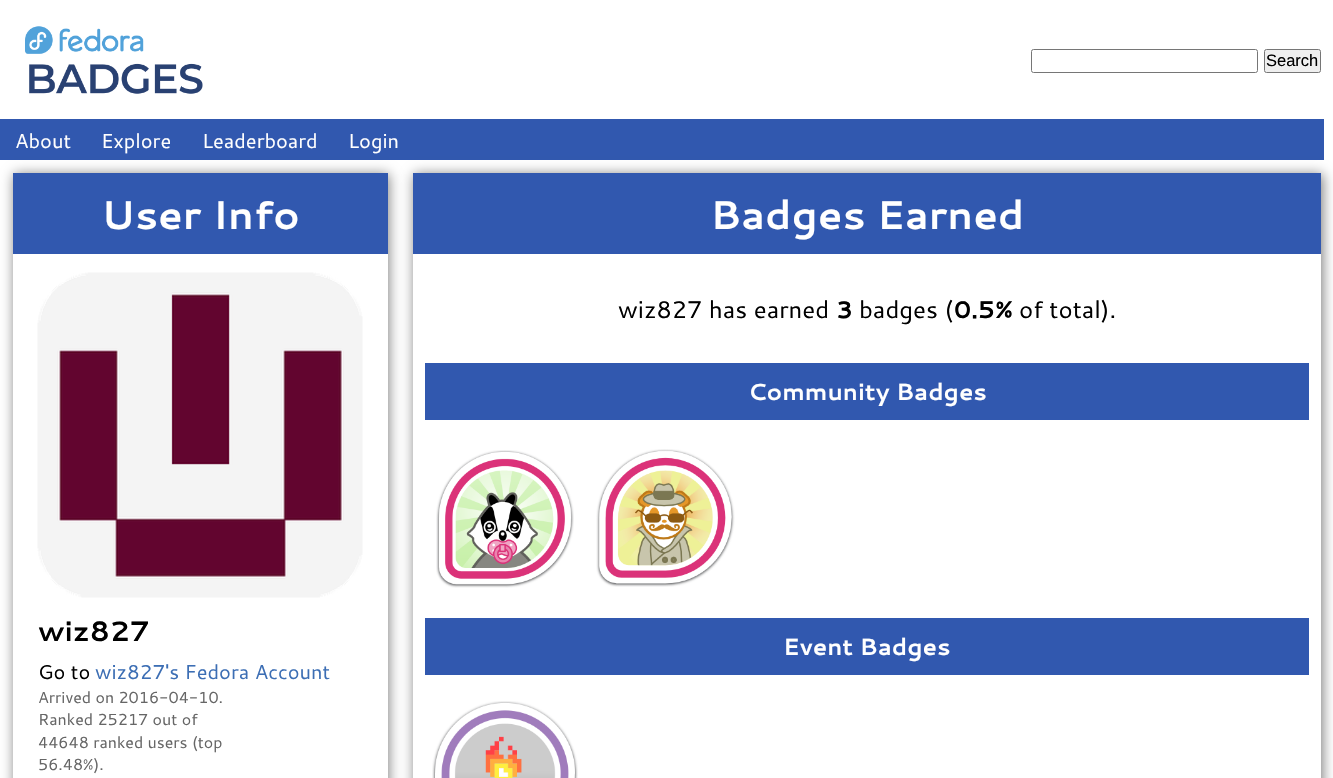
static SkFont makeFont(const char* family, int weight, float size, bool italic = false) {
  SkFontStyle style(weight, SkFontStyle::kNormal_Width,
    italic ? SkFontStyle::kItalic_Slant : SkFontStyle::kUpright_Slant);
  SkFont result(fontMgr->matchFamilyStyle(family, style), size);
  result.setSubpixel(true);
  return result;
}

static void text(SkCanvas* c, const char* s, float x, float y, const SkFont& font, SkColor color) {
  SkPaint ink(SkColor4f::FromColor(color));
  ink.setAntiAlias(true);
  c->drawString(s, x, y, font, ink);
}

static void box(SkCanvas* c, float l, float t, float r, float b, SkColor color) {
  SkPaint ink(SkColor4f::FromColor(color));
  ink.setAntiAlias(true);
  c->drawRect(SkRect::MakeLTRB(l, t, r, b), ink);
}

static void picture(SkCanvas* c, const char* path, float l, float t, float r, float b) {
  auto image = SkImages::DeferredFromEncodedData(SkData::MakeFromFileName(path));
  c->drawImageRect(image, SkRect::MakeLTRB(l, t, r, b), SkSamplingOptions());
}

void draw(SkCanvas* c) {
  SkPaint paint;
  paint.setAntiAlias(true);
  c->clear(0xffffffff);
  picture(c, "img_01.png", 25, 26, 203, 94);
  paint.setStyle(SkPaint::kStroke_Style);
  paint.setStrokeWidth(1);
  paint.setColor(0xff767676);
  c->drawRoundRect(SkRect::MakeLTRB(1031.5f, 49.5f, 1257.5f, 72.5f), 2, 2, paint);
  paint.setStyle(SkPaint::kFill_Style);
  paint.setColor(0xffefefef);
  c->drawRoundRect(SkRect::MakeLTRB(1264.5f, 49.5f, 1320.5f, 72.5f), 2, 2, paint);
  paint.setStyle(SkPaint::kStroke_Style);
  paint.setColor(0xff767676);
  c->drawRoundRect(SkRect::MakeLTRB(1264.5f, 49.5f, 1320.5f, 72.5f), 2, 2, paint);
  SkFont face1 = makeFont("Liberation Sans", 400, 16.5f);
  text(c, "Search", 1266, 66, face1, 0xff000000);
  box(c, 0, 119, 1324, 160, 0xff3158af);
  SkFont face2 = makeFont("Cantarell", 400, 20);
  text(c, "About", 15, 148, face2, 0xffffffff);
  text(c, "Explore", 101, 148, face2, 0xffffffff);
  text(c, "Leaderboard", 202, 148, face2, 0xffffffff);
  text(c, "Login", 348, 148, face2, 0xffffffff);
  c->save();
  c->clipPath(SkPathBuilder(SkPathFillType::kEvenOdd).moveTo(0, 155).lineTo(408, 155).lineTo(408, 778).lineTo(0, 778).close().moveTo(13, 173).lineTo(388, 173).lineTo(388, 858).lineTo(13, 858).close().detach(), true);
  paint.setStyle(SkPaint::kFill_Style);
  paint.setColor(0x80000000);
  paint.setMaskFilter(SkMaskFilter::MakeBlur(kNormal_SkBlurStyle, 6));
  c->drawRect(SkRect::MakeLTRB(14, 174, 389, 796), paint);
  paint.setMaskFilter(nullptr);
  c->restore();
  box(c, 13, 173, 388, 254, 0xff3158af);
  SkFont face3 = makeFont("Cantarell", 700, 40);
  text(c, "User Info", 101, 229, face3, 0xffffffff);
  picture(c, "img_02.png", 37, 272, 363, 598);
  SkFont face4 = makeFont("Cantarell", 700, 28);
  text(c, "wiz827", 38, 641, face4, 0xff000000);
  text(c, "Go to", 38, 679, face2, 0xff000000);
  text(c, "wiz827's Fedora Account", 95, 679, face2, 0xff3c6eb4);
  SkFont face5 = makeFont("Cantarell", 400, 16);
  text(c, "Arrived on 2016-04-10.", 38, 703, face5, 0xff666666);
  text(c, "Ranked 25217 out of", 38, 725, face5, 0xff666666);
  text(c, "44648 ranked users (top", 38, 748, face5, 0xff666666);
  text(c, "56.48%).", 38, 770, face5, 0xff666666);
  c->save();
  c->clipPath(SkPathBuilder(SkPathFillType::kEvenOdd).moveTo(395, 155).lineTo(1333, 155).lineTo(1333, 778).lineTo(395, 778).close().moveTo(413, 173).lineTo(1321, 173).lineTo(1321, 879).lineTo(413, 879).close().detach(), true);
  paint.setMaskFilter(SkMaskFilter::MakeBlur(kNormal_SkBlurStyle, 6));
  c->drawRect(SkRect::MakeLTRB(414, 174, 1323, 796), paint);
  paint.setMaskFilter(nullptr);
  c->restore();
  box(c, 413, 173, 1321, 254, 0xff3158af);
  text(c, "Badges Earned", 710, 229, face3, 0xffffffff);
  SkFont face6 = makeFont("Cantarell", 400, 24);
  text(c, "wiz827 has earned", 618, 318, face6, 0xff000000);
  SkFont face7 = makeFont("Cantarell", 700, 24);
  text(c, "3", 836, 318, face7, 0xff000000);
  text(c, "badges (", 859, 318, face6, 0xff000000);
  text(c, "0.5%", 954, 318, face7, 0xff000000);
  text(c, "of total).", 1019, 318, face6, 0xff000000);
  box(c, 425, 363, 1309, 420, 0xff3158af);
  SkFont face8 = makeFont("Cantarell", 700, 23.4f);
  text(c, "Community Badges", 748, 400, face8, 0xffffffff);
  picture(c, "img_03.png", 436, 450, 574, 588);
  picture(c, "img_04.png", 596, 449, 735, 587);
  box(c, 425, 618, 1309, 675, 0xff3158af);
  text(c, "Event Badges", 783, 655, face8, 0xffffffff);
  picture(c, "img_05.png", 432, 701, 578, 778);
}
